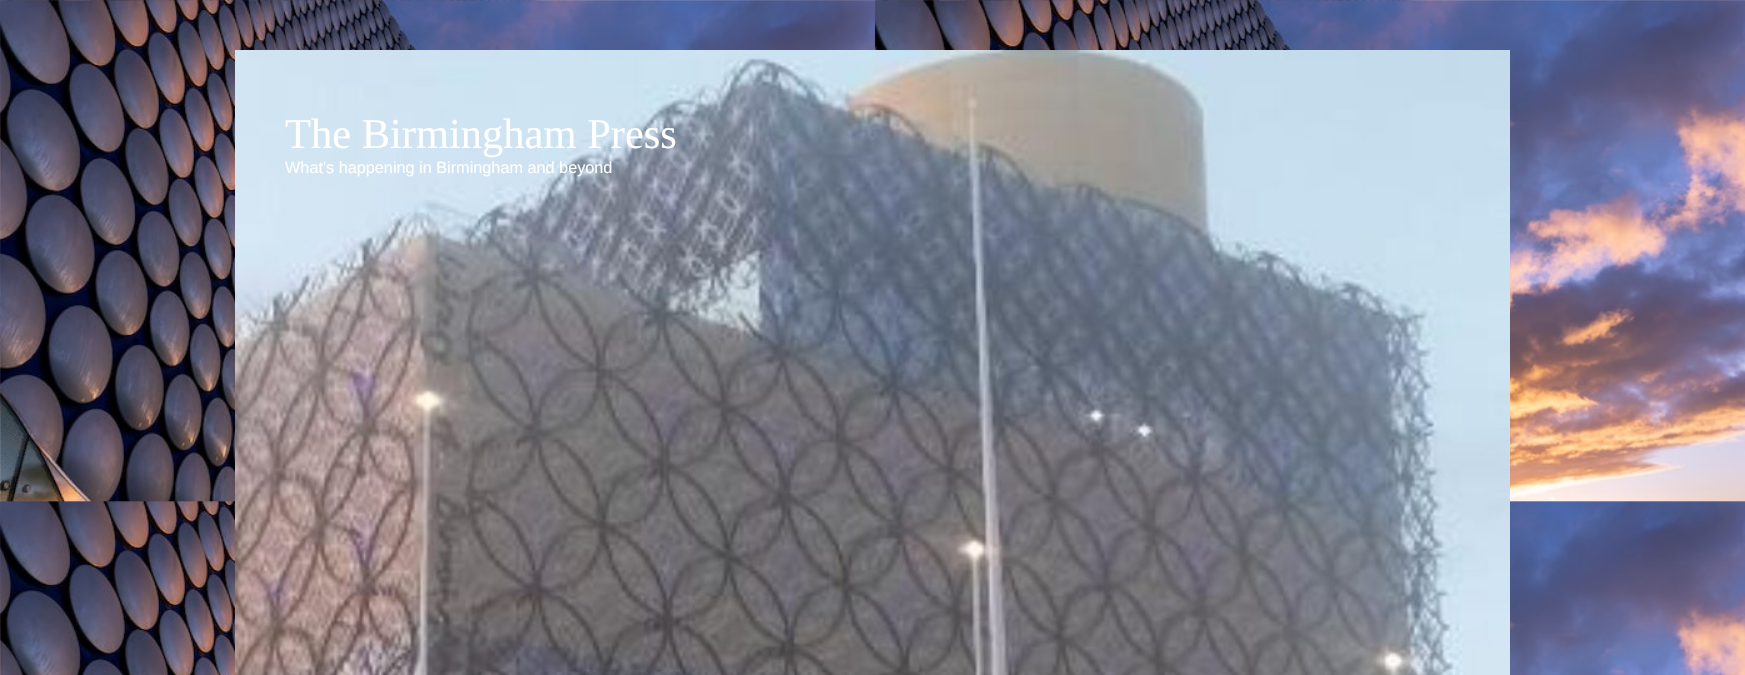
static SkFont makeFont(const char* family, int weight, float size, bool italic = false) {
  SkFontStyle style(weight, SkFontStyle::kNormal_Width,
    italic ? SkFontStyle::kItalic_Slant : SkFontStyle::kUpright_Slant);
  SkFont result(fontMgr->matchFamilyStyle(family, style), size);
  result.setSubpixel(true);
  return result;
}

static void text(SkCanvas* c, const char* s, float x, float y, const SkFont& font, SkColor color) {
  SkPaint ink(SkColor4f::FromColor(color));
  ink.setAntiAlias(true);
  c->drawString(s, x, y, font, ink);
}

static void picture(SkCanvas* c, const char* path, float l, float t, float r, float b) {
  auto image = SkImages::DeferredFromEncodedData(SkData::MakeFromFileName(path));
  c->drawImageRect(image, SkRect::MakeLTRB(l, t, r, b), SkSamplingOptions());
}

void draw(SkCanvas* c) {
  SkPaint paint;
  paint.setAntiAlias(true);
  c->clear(0xffffffff);
  picture(c, "img_01.png", 0, 0, 1745, 675);
  picture(c, "img_02.png", 235, 50, 1510, 675);
  SkFont face1 = makeFont("Liberation Serif", 400, 42.5f);
  text(c, "The Birmingham Press", 285, 148, face1, 0xffffffff);
  SkFont face2 = makeFont("Liberation Sans", 400, 16.25f);
  text(c, "What's happening in Birmingham and beyond", 285, 173, face2, 0xffffffff);
}
